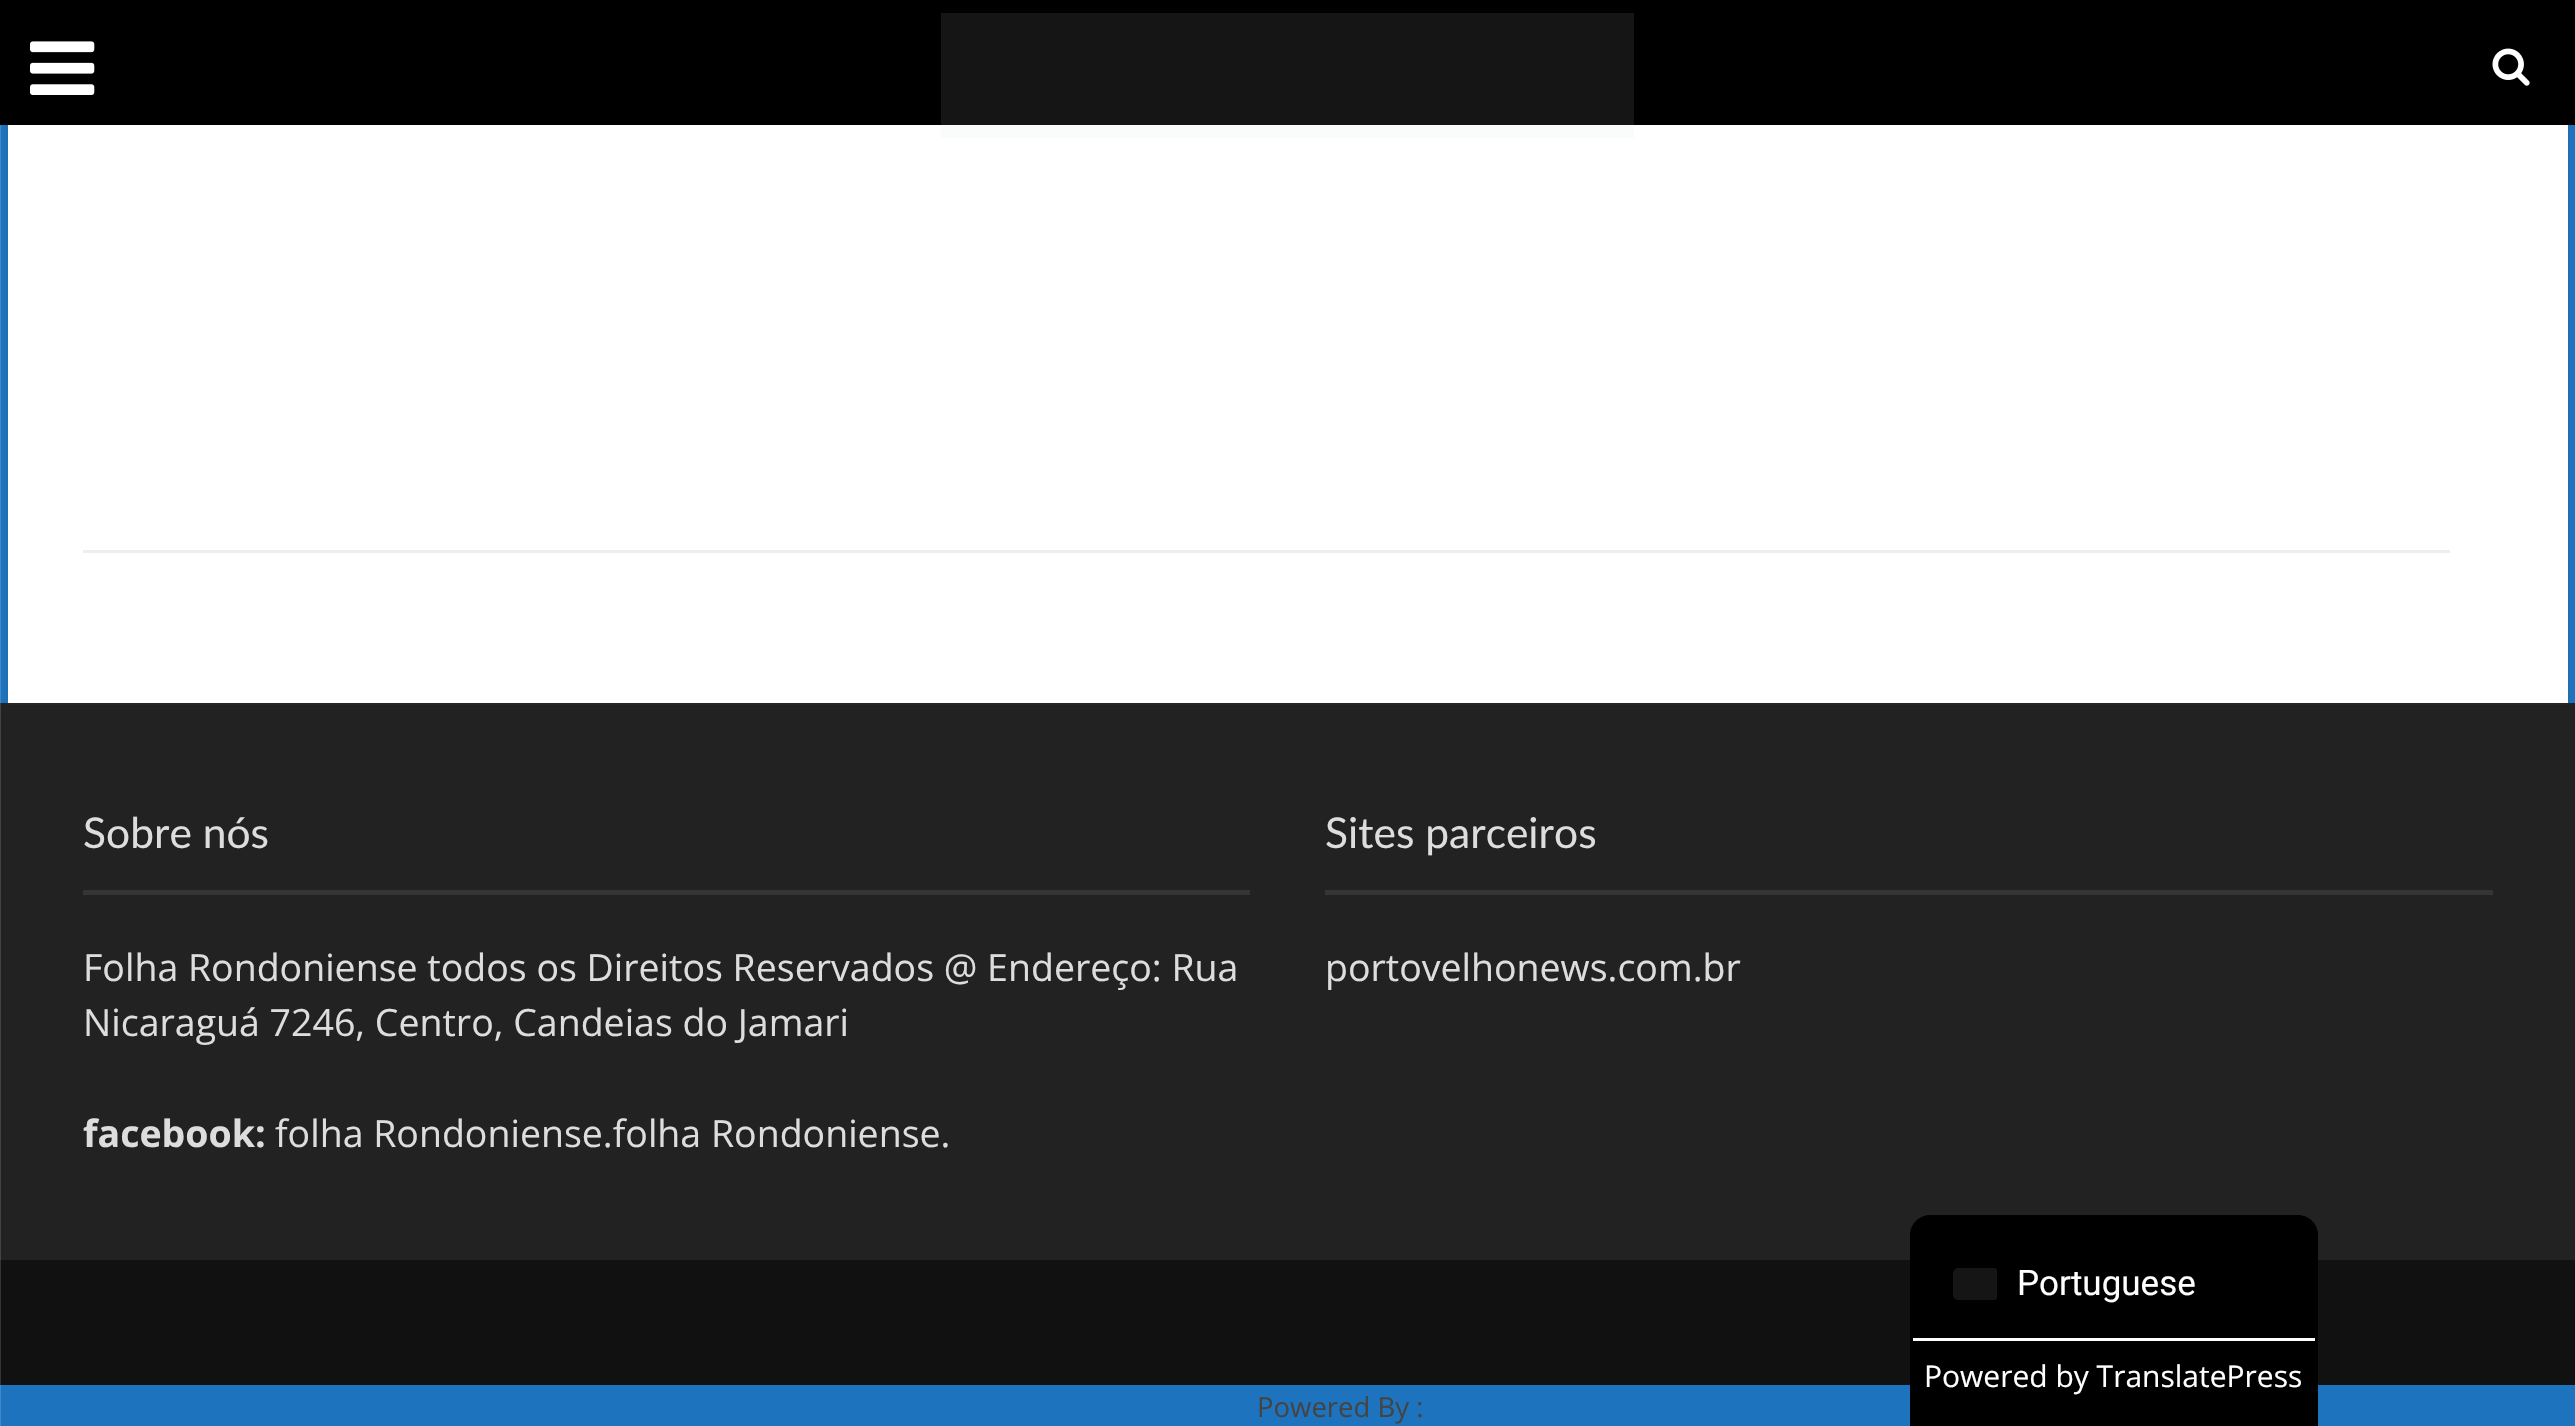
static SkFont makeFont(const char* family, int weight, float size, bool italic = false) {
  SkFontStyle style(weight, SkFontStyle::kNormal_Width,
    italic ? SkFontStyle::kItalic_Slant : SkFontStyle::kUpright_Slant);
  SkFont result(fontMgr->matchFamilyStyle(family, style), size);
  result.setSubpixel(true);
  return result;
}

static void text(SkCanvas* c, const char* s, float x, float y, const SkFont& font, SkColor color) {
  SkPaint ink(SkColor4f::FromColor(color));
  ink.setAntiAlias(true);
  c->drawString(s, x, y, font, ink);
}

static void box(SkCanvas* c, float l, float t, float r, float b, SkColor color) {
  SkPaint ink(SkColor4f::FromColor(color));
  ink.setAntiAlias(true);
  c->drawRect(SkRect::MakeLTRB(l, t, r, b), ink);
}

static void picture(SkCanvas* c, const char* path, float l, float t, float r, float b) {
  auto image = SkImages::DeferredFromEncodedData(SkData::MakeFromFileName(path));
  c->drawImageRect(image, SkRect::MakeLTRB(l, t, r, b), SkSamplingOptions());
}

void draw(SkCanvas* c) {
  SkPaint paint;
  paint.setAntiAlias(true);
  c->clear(0xff1e73be);
  box(c, 0, 125, 1, 1426, 0xff4088c8);
  box(c, 1, 703, 2575, 1260, 0xff222222);
  paint.setStyle(SkPaint::kStroke_Style);
  paint.setStrokeWidth(3);
  paint.setColor(0x1a444444);
  c->drawRect(SkRect::MakeLTRB(6.5f, -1.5f, 2568.5f, 703.5f), paint);
  box(c, 8, 125, 2568, 703, 0xffffffff);
  box(c, 941, 125, 1634, 138, 0xfffafbfb);
  box(c, 83, 550, 2450, 553, 0xffeeeeee);
  box(c, 0, 0, 2575, 125, 0xff000000);
  box(c, 941, 13, 1634, 125, 0xff151516);
  picture(c, "img_01.png", 30, 41, 95, 95);
  picture(c, "img_02.png", 2492, 48, 2530, 86);
  box(c, 0, 703, 1, 1260, 0xff434343);
  SkFont face1 = makeFont("Lato", 400, 42.5f);
  text(c, "Sobre nós", 83, 848, face1, 0xffdddddd);
  box(c, 83, 890, 1250, 895, 0xff353535);
  SkFont face2 = makeFont("Open Sans", 400, 37.5f);
  text(c, "Folha Rondoniense todos os Direitos Reservados @ Endereço: Rua", 83, 981, face2, 0xffdddddd);
  text(c, "Nicaraguá 7246, Centro, Candeias do Jamari", 83, 1036, face2, 0xffdddddd);
  SkFont face3 = makeFont("Open Sans", 700, 37.5f);
  text(c, "facebook:", 83, 1147, face3, 0xffdddddd);
  text(c, "folha Rondoniense.folha Rondoniense.", 275, 1147, face2, 0xffdddddd);
  text(c, "Sites parceiros", 1325, 848, face1, 0xffdddddd);
  box(c, 1325, 890, 2493, 895, 0xff353535);
  text(c, "portovelhonews.com.br", 1325, 981, face2, 0xffdddddd);
  box(c, 1, 1260, 2575, 1385, 0xff111111);
  box(c, 0, 1260, 1, 1385, 0xff353535);
  paint.setStyle(SkPaint::kFill_Style);
  paint.setColor(0xff000000);
  c->drawPath(SkPathBuilder().moveTo(1930, 1215).lineTo(2298, 1215).cubicTo(2309, 1215, 2318, 1224, 2318, 1235).lineTo(2318, 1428).lineTo(1910, 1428).lineTo(1910, 1235).cubicTo(1910, 1224, 1919, 1215, 1930, 1215).close().detach(), paint);
  c->save();
  c->clipPath(SkPathBuilder().moveTo(1958, 1268).lineTo(1993, 1268).cubicTo(1996, 1268, 1998, 1270, 1998, 1273).lineTo(1998, 1295).cubicTo(1998, 1298, 1996, 1300, 1993, 1300).lineTo(1958, 1300).cubicTo(1955, 1300, 1953, 1298, 1953, 1295).lineTo(1953, 1273).cubicTo(1953, 1270, 1955, 1268, 1958, 1268).close().detach(), true);
  paint.setColor(0xff151516);
  c->drawPath(SkPathBuilder().moveTo(1958, 1268).lineTo(1997, 1268).lineTo(1997, 1300).lineTo(1958, 1300).cubicTo(1955, 1300, 1953, 1298, 1953, 1295).lineTo(1953, 1273).cubicTo(1953, 1270, 1955, 1268, 1958, 1268).close().detach(), paint);
  c->restore();
  SkFont face4 = makeFont("Roboto", 400, 35);
  text(c, "Portuguese", 2017, 1295, face4, 0xffffffff);
  box(c, 1913, 1338, 2315, 1341, 0xffffffff);
  SkFont face5 = makeFont("Open Sans", 400, 30);
  text(c, "Powered by TranslatePress", 1924, 1387, face5, 0xffffffff);
  SkFont face6 = makeFont("Open Sans", 400, 27.5f);
  text(c, "Powered By :", 1257, 1417, face6, 0xff444444);
}
